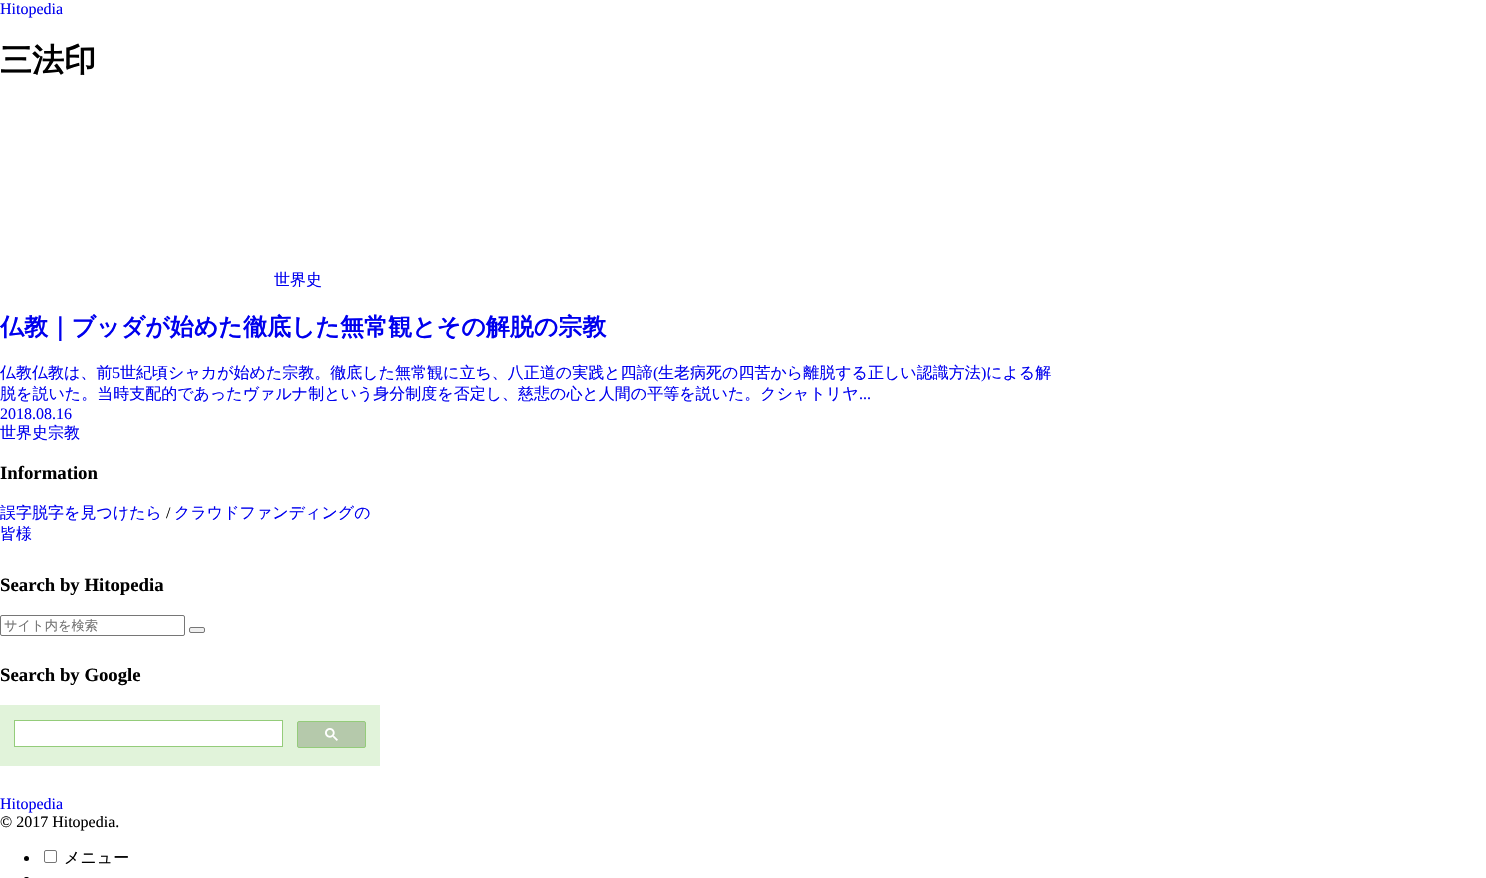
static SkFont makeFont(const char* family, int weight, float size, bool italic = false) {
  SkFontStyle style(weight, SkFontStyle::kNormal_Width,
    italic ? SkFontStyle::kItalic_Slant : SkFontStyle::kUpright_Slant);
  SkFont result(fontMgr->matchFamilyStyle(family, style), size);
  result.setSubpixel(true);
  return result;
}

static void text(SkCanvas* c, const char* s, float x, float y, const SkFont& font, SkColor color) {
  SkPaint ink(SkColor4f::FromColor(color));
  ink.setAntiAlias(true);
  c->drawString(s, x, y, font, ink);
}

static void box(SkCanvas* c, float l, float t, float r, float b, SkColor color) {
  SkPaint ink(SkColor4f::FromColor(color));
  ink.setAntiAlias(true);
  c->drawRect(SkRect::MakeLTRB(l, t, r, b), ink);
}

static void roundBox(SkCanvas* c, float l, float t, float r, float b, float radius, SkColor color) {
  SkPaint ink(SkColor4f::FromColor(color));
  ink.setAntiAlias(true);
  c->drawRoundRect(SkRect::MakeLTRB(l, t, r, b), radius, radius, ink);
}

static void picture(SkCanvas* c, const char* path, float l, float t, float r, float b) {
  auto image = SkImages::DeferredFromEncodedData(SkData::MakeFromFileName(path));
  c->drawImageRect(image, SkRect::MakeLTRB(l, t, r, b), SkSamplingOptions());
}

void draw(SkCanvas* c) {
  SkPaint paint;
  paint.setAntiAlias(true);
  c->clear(0xffffffff);
  SkFont face1 = makeFont("Liberation Serif", 400, 16);
  text(c, "Hitopedia", 0, 14, face1, 0xff0000ee);
  SkFont face2 = makeFont("WenQuanYi Zen Hei", 700, 32);
  text(c, "三法印", 0, 71, face2, 0xff000000);
  SkFont face3 = makeFont("WenQuanYi Zen Hei", 500, 16);
  text(c, "世界史", 274, 285, face3, 0xff0000ee);
  SkFont face4 = makeFont("WenQuanYi Zen Hei", 700, 24);
  text(c, "仏教｜ブッダが始めた徹底した無常観とその解脱の宗教", 0, 335, face4, 0xff0000ee);
  text(c, "仏教仏教は、前", 0, 378, face3, 0xff0000ee);
  text(c, "5", 112, 378, face1, 0xff0000ee);
  text(c, "世紀頃シャカが始めた宗教。徹底した無常観に立ち、八正道の実践と四諦", 120, 378, face3, 0xff0000ee);
  text(c, "(", 653, 378, face1, 0xff0000ee);
  text(c, "生老病死の四苦から離脱する正しい認識方法", 658, 378, face3, 0xff0000ee);
  text(c, ")", 981, 378, face1, 0xff0000ee);
  text(c, "による解", 986, 378, face3, 0xff0000ee);
  text(c, "脱を説いた。当時支配的であったヴァルナ制という身分制度を否定し、慈悲の心と人間の平等を説いた。クシャトリヤ", 0, 399, face3, 0xff0000ee);
  text(c, "...", 859, 399, face1, 0xff0000ee);
  text(c, "2018.08.16", 0, 419, face1, 0xff0000ee);
  text(c, "世界史宗教", 0, 438, face3, 0xff0000ee);
  SkFont face5 = makeFont("Liberation Serif", 700, 18.75f);
  text(c, "Information", 0, 479, face5, 0xff000000);
  text(c, "誤字脱字を見つけたら", 0, 518, face3, 0xff0000ee);
  text(c, "/", 166, 518, face1, 0xff000000);
  text(c, "クラウドファンディングの", 174, 518, face3, 0xff0000ee);
  text(c, "皆様", 0, 539, face3, 0xff0000ee);
  text(c, "Search by Hitopedia", 0, 591, face5, 0xff000000);
  paint.setStyle(SkPaint::kStroke_Style);
  paint.setStrokeWidth(1);
  paint.setColor(0xff767676);
  c->drawRoundRect(SkRect::MakeLTRB(0.5f, 615.5f, 184.5f, 635.5f), 1.5f, 1.5f, paint);
  SkFont face6 = makeFont("WenQuanYi Zen Hei", 500, 13.25f);
  text(c, "サイト内を検索", 4, 630, face6, 0xff757575);
  paint.setStyle(SkPaint::kFill_Style);
  paint.setColor(0xffefefef);
  c->drawRoundRect(SkRect::MakeLTRB(189.5f, 627.5f, 204.5f, 632.5f), 1.5f, 1.5f, paint);
  paint.setStyle(SkPaint::kStroke_Style);
  paint.setColor(0xff767676);
  c->drawRoundRect(SkRect::MakeLTRB(189.5f, 627.5f, 204.5f, 632.5f), 1.5f, 1.5f, paint);
  text(c, "Search by Google", 0, 681, face5, 0xff000000);
  box(c, 0, 705, 380, 766, 0xffe1f3da);
  paint.setStyle(SkPaint::kFill_Style);
  paint.setColor(0xffffffff);
  c->drawRect(SkRect::MakeLTRB(14.5f, 720.5f, 282.5f, 746.5f), paint);
  paint.setStyle(SkPaint::kStroke_Style);
  paint.setColor(0xff94cc7a);
  c->drawRect(SkRect::MakeLTRB(14.5f, 720.5f, 282.5f, 746.5f), paint);
  paint.setStyle(SkPaint::kFill_Style);
  paint.setColor(0xffb5c9ab);
  c->drawRoundRect(SkRect::MakeLTRB(297.5f, 721.5f, 365.5f, 747.5f), 1.5f, 1.5f, paint);
  paint.setStyle(SkPaint::kStroke_Style);
  paint.setColor(0xff94cc7a);
  c->drawRoundRect(SkRect::MakeLTRB(297.5f, 721.5f, 365.5f, 747.5f), 1.5f, 1.5f, paint);
  picture(c, "img_01.png", 325, 728, 338, 741);
  text(c, "Hitopedia", 0, 809, face1, 0xff0000ee);
  text(c, "© 2017 Hitopedia.", 0, 827, face1, 0xff000000);
  paint.setStyle(SkPaint::kFill_Style);
  paint.setColor(0xff000000);
  c->drawCircle(26.5f, 858.5f, 2.5f, paint);
  paint.setStyle(SkPaint::kStroke_Style);
  paint.setColor(0xff767676);
  c->drawRoundRect(SkRect::MakeLTRB(44.5f, 850.5f, 56.5f, 862.5f), 1.5f, 1.5f, paint);
  text(c, "メニュー", 64, 863, face3, 0xff000000);
  roundBox(c, 24, 877, 29, 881, 2.5f, 0xff000000);
}
